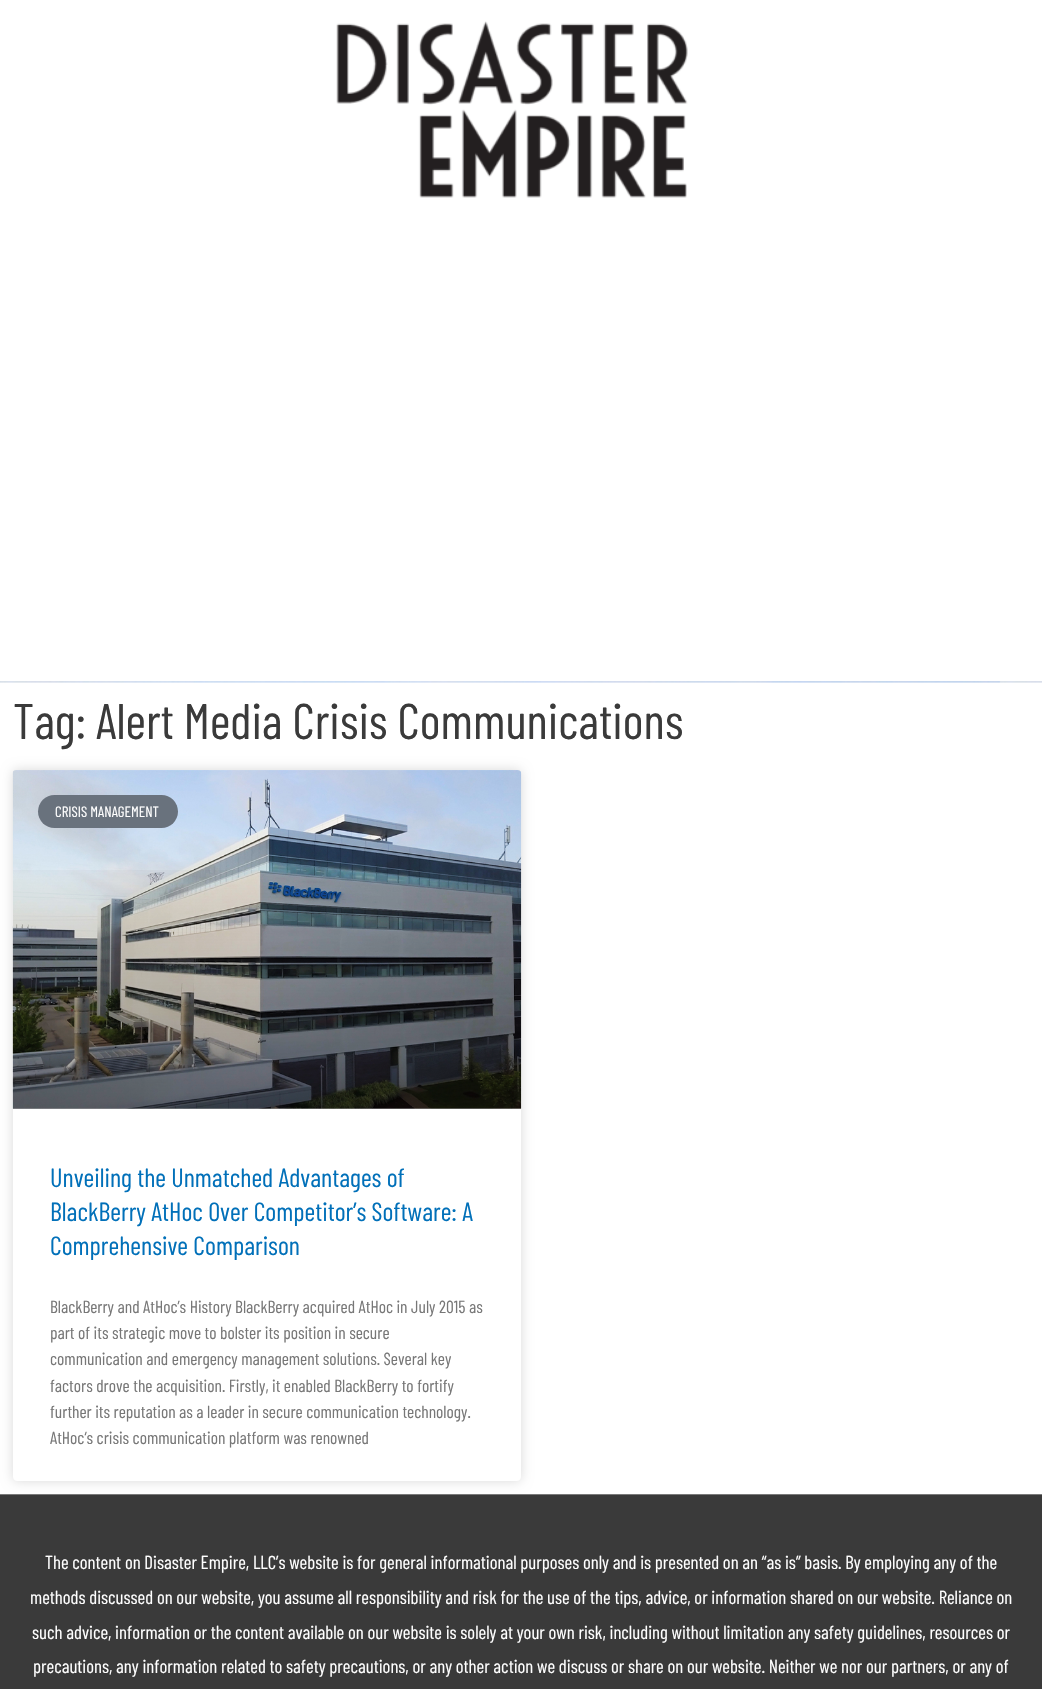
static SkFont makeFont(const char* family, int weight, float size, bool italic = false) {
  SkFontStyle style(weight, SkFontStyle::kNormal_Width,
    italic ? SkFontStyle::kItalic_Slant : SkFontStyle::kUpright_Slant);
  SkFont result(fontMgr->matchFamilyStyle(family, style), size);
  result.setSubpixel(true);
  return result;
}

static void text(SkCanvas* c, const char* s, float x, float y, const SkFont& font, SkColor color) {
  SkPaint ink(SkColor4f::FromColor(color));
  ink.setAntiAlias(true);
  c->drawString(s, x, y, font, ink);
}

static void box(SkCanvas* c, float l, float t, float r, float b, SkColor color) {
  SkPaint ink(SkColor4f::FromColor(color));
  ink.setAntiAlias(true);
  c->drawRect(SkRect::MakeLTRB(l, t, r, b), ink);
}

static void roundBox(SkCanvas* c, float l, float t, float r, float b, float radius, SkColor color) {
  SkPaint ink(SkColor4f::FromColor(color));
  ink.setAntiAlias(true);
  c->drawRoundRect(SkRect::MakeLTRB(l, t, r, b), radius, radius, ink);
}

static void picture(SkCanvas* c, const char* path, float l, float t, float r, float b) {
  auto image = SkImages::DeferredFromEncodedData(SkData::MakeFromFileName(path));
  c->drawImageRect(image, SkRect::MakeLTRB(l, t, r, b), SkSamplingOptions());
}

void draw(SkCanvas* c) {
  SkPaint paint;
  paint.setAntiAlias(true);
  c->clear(0xffffffff);
  picture(c, "img_01.png", 336, 21, 688, 198);
  picture(c, "img_02.png", 0, 681, 1042, 683);
  SkFont face1 = makeFont("Barlow Condensed", 400, 50);
  text(c, "Tag: Alert Media Crisis Communications", 13, 739, face1, 0xff3a3a3a);
  c->save();
  c->clipPath(SkPathBuilder(SkPathFillType::kEvenOdd).moveTo(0, 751).lineTo(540, 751).lineTo(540, 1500).lineTo(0, 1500).close().moveTo(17, 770).lineTo(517, 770).cubicTo(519, 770, 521, 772, 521, 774).lineTo(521, 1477).cubicTo(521, 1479, 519, 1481, 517, 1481).lineTo(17, 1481).cubicTo(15, 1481, 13, 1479, 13, 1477).lineTo(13, 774).cubicTo(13, 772, 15, 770, 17, 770).close().detach(), true);
  paint.setColor(0x26000000);
  paint.setMaskFilter(SkMaskFilter::MakeBlur(kNormal_SkBlurStyle, 6));
  c->drawRoundRect(SkRect::MakeLTRB(13, 770, 521, 1481), 4, 4, paint);
  paint.setMaskFilter(nullptr);
  c->restore();
  picture(c, "img_03.png", 12, 770, 522, 1109);
  {
    const SkColor colors[] = {0x59000000, 0x00000000};
    const float stops[] = {0, 0.75f};
    const SkPoint ends[] = {{267, 1109}, {267, 770}};
    paint.setShader(SkGradientShader::MakeLinear(ends, colors, stops, 2, SkTileMode::kClamp));
    paint.setAlpha(255);
  }
  c->drawRect(SkRect::MakeLTRB(13, 870, 521, 1109), paint);
  roundBox(c, 38, 795, 178, 828, 16.5f, 0xff69727d);
  SkFont face2 = makeFont("Barlow Condensed", 400, 15);
  text(c, "CRISIS MANAGEMENT", 55, 817, face2, 0xffffffff);
  SkFont face3 = makeFont("Barlow Condensed", 400, 26.25f);
  text(c, "Unveiling the Unmatched Advantages of", 50, 1187, face3, 0xff0170b9);
  text(c, "BlackBerry AtHoc Over Competitor’s Software: A", 50, 1221, face3, 0xff0170b9);
  text(c, "Comprehensive Comparison", 50, 1255, face3, 0xff0170b9);
  SkFont face4 = makeFont("Barlow Condensed", 400, 17.5f);
  text(c, "BlackBerry and AtHoc’s History BlackBerry acquired AtHoc in July 2015 as", 50, 1313, face4, 0xff777777);
  text(c, "part of its strategic move to bolster its position in secure", 50, 1339, face4, 0xff777777);
  text(c, "communication and emergency management solutions. Several key", 50, 1365, face4, 0xff777777);
  text(c, "factors drove the acquisition. Firstly, it enabled BlackBerry to fortify", 50, 1392, face4, 0xff777777);
  text(c, "further its reputation as a leader in secure communication technology.", 50, 1418, face4, 0xff777777);
  text(c, "AtHoc‘s crisis communication platform was renowned", 50, 1444, face4, 0xff777777);
  box(c, 0, 1494, 1042, 1495, 0xff7a7a7a);
  box(c, 0, 1495, 1042, 1689, 0xff3a3a3a);
  SkFont face5 = makeFont("Barlow Condensed", 400, 18.75f);
  text(c, "The content on Disaster Empire, LLC’s website is for general informational purposes only and is presented on an “as is” basis. By employing any of the", 45, 1569, face5, 0xffffffff);
  text(c, "methods discussed on our website, you assume all responsibility and risk for the use of the tips, advice, or information shared on our website. Reliance on", 30, 1604, face5, 0xffffffff);
  text(c, "such advice, information or the content available on our website is solely at your own risk, including without limitation any safety guidelines, resources or", 32, 1639, face5, 0xffffffff);
  text(c, "precautions, any information related to safety precautions, or any other action we discuss or share on our website. Neither we nor our partners, or any of", 33, 1673, face5, 0xffffffff);
}
